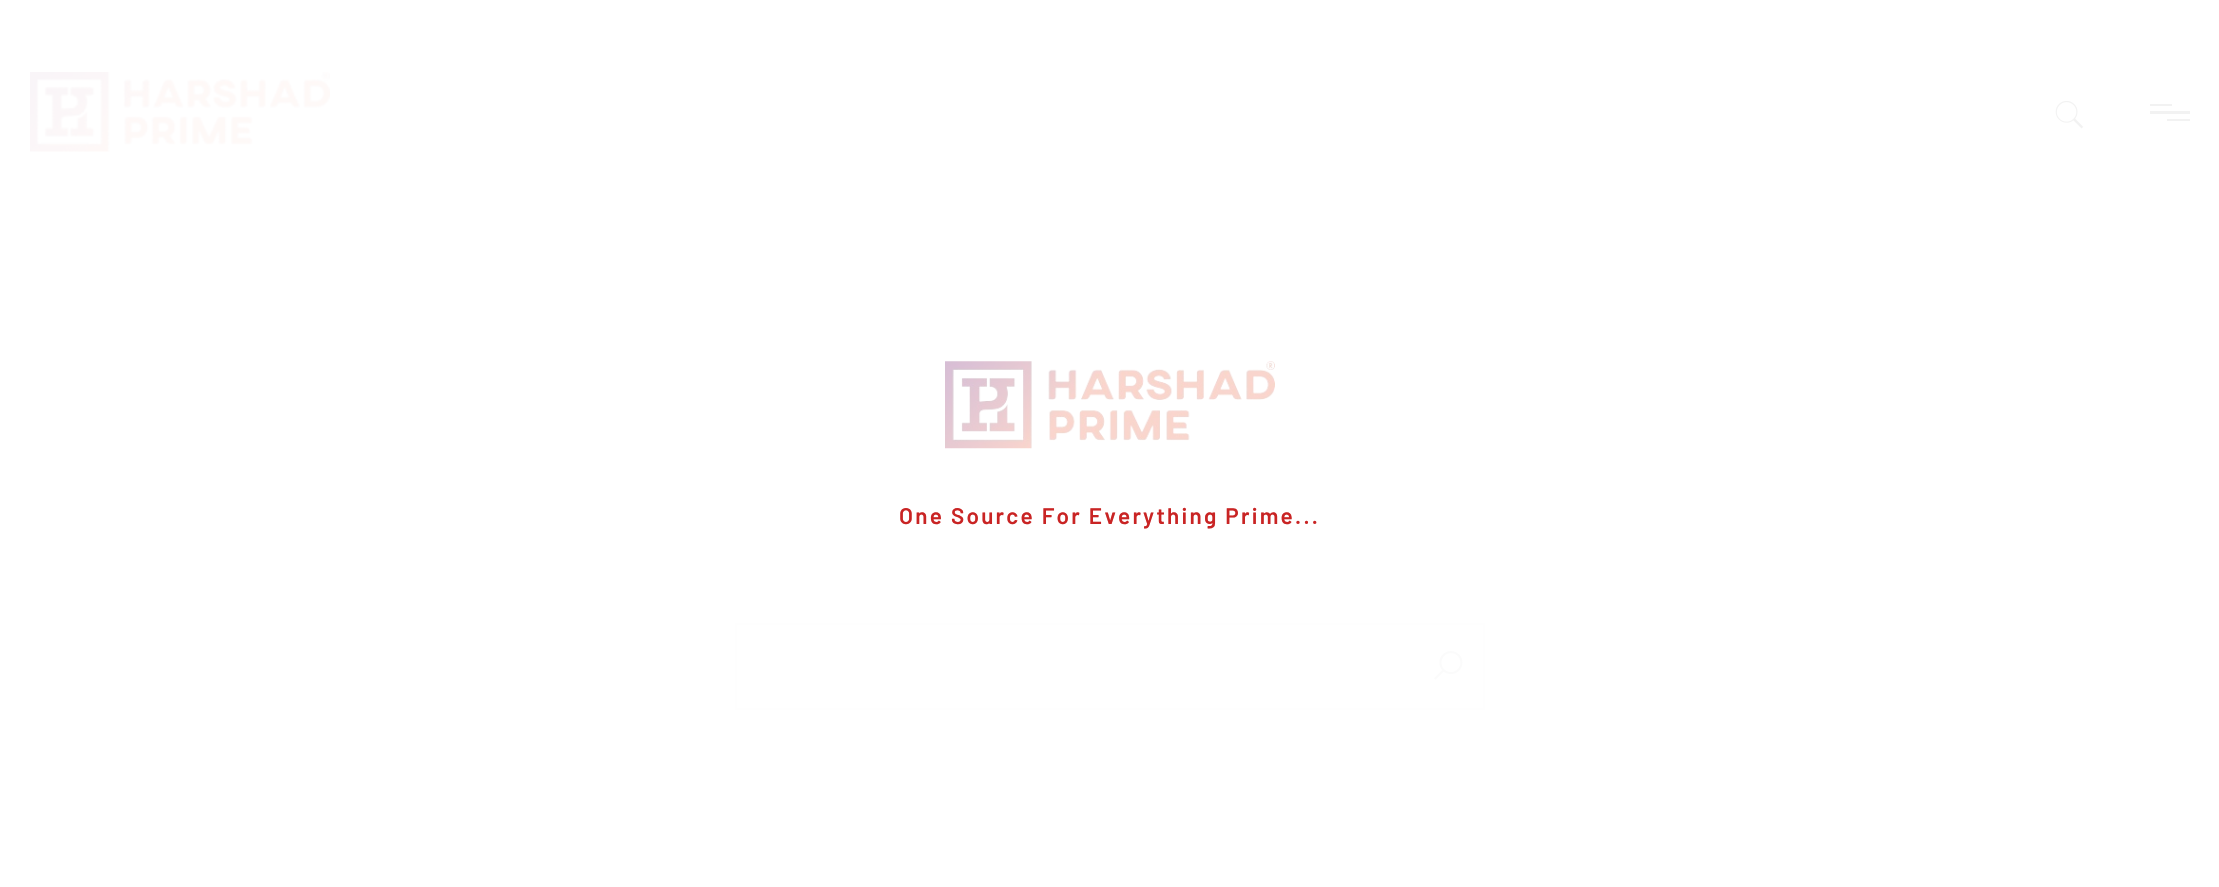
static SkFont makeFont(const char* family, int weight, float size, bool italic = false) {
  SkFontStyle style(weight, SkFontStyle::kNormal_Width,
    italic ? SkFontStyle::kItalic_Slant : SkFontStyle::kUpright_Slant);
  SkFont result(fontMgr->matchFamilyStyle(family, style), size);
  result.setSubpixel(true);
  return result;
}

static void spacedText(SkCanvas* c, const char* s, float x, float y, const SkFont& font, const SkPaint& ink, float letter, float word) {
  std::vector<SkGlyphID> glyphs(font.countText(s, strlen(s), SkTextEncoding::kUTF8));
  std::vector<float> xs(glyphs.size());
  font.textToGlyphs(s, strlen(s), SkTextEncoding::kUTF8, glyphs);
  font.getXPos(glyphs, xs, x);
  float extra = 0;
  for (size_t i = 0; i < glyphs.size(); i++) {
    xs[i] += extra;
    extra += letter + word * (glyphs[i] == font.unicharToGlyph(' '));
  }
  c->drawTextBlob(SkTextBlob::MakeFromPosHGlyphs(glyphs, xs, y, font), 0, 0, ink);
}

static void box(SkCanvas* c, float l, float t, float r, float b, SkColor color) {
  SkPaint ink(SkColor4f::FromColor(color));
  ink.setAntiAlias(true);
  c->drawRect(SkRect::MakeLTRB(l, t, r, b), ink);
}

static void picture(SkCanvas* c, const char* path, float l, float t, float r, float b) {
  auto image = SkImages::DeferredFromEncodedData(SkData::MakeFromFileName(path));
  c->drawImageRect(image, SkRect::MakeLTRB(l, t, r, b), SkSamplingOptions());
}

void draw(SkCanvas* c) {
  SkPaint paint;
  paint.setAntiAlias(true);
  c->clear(0xfffcfafa);
  box(c, 0, 0, 2219, 1, 0xffffffff);
  picture(c, "img_01.png", 30, 72, 330, 152);
  picture(c, "img_02.png", 2055, 101, 2084, 129);
  box(c, 2150, 104, 2172, 106, 0xff000000);
  box(c, 2150, 111, 2190, 114, 0xff000000);
  box(c, 2167, 119, 2190, 121, 0xff000000);
  paint.setStyle(SkPaint::kStroke_Style);
  paint.setStrokeWidth(2);
  paint.setColor(0xffe1e1e1);
  c->drawRect(SkRect::MakeLTRB(736, 624, 1484, 709), paint);
  picture(c, "img_03.png", 1434, 651, 1463, 680);
  box(c, 0, 1, 1110, 887, 0xf2ffffff);
  box(c, 1110, 1, 2219, 887, 0xf2ffffff);
  picture(c, "img_04.png", 945, 361, 1275, 449);
  SkFont face1 = makeFont("Barlow", 600, 22.5f);
  paint.setStyle(SkPaint::kFill_Style);
  paint.setColor(0xffc92424);
  spacedText(c, "One Source For Everything Prime...", 899, 524, face1, paint, 2.25f, 0);
}
